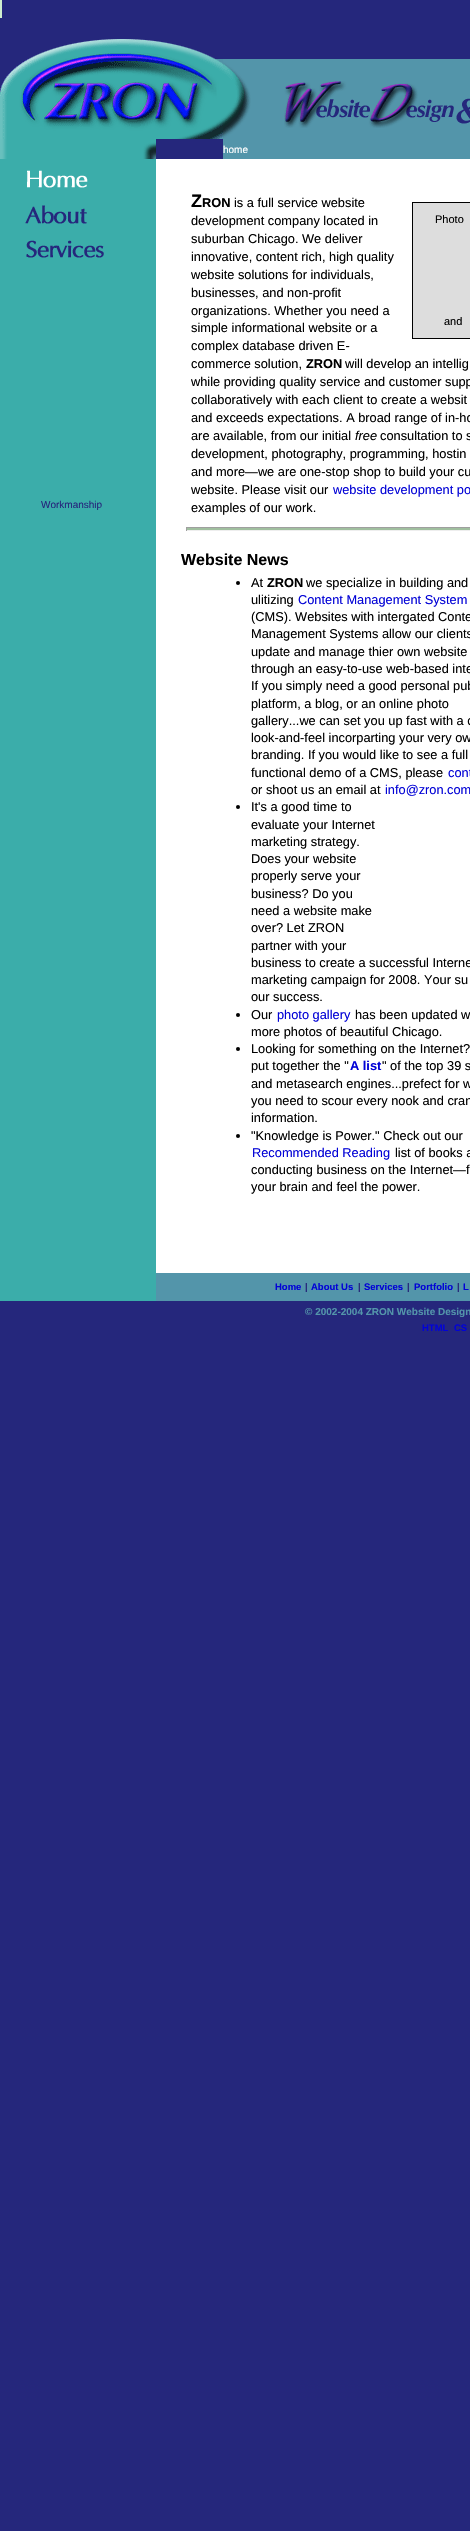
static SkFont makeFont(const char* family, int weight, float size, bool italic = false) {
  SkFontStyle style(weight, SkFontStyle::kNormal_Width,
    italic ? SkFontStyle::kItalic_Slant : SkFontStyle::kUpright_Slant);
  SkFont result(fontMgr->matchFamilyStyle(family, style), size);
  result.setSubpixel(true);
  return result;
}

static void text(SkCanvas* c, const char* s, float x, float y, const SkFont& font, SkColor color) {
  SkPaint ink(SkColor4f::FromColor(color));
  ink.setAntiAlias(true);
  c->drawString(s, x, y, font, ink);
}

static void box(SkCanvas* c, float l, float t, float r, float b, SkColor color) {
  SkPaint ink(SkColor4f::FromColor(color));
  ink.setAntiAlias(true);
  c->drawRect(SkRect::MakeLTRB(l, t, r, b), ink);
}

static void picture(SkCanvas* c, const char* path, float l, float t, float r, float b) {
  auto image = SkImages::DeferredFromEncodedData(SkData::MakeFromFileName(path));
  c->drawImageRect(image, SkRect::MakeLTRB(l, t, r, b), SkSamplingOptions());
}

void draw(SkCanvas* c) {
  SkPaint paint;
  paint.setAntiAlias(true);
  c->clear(0xff25277c);
  box(c, 0, 0, 2, 18, 0xffcfeece);
  picture(c, "img_01.png", 28, 39, 156, 59);
  picture(c, "img_02.png", 156, 41, 216, 59);
  picture(c, "img_03.png", 0, 59, 156, 139);
  picture(c, "img_04.png", 156, 59, 223, 139);
  picture(c, "img_05.png", 223, 59, 251, 139);
  box(c, 251, 59, 470, 139, 0xff5395aa);
  picture(c, "img_06.png", 284, 81, 470, 128);
  picture(c, "img_07.png", 0, 139, 156, 159);
  box(c, 223, 139, 470, 159, 0xff5395aa);
  SkFont face1 = makeFont("Liberation Sans", 400, 10);
  text(c, "home", 223, 153, face1, 0xffffffff);
  box(c, 0, 159, 156, 1301, 0xff3badaa);
  box(c, 156, 159, 470, 1273, 0xffffffff);
  picture(c, "img_08.png", 27, 170, 88, 188);
  picture(c, "img_09.png", 25, 205, 87, 224);
  picture(c, "img_10.png", 26, 240, 104, 258);
  text(c, "Workmanship", 41, 508, face1, 0xff25277c);
  SkFont face2 = makeFont("Liberation Sans", 700, 18);
  text(c, "Z", 191, 207, face2, 0xff000000);
  SkFont face3 = makeFont("Liberation Sans", 700, 12.8f);
  text(c, "RON", 202, 207, face3, 0xff000000);
  SkFont face4 = makeFont("Liberation Sans", 400, 12.8f);
  text(c, "is a full service website", 234, 207, face4, 0xff000000);
  text(c, "development company located in", 191, 225, face4, 0xff000000);
  text(c, "suburban Chicago. We deliver", 191, 243, face4, 0xff000000);
  text(c, "innovative, content rich, high quality", 191, 261, face4, 0xff000000);
  text(c, "website solutions for individuals,", 191, 279, face4, 0xff000000);
  text(c, "businesses, and non-profit", 191, 297, face4, 0xff000000);
  text(c, "organizations. Whether you need a", 191, 315, face4, 0xff000000);
  text(c, "simple informational website or a", 191, 332, face4, 0xff000000);
  text(c, "complex database driven E-", 191, 350, face4, 0xff000000);
  text(c, "commerce solution,", 191, 368, face4, 0xff000000);
  text(c, "ZRON", 306, 368, face3, 0xff000000);
  text(c, "will develop an intellig", 345, 368, face4, 0xff000000);
  text(c, "while providing quality service and customer supp", 191, 386, face4, 0xff000000);
  text(c, "collaboratively with each client to create a websit", 191, 404, face4, 0xff000000);
  text(c, "and exceeds expectations. A broad range of in-ho", 191, 422, face4, 0xff000000);
  text(c, "are available, from our initial", 191, 440, face4, 0xff000000);
  SkFont face5 = makeFont("Liberation Sans", 400, 12.8f, true);
  text(c, "free", 355, 440, face5, 0xff000000);
  text(c, "consultation to s", 380, 440, face4, 0xff000000);
  text(c, "development, photography, programming, hostin", 191, 458, face4, 0xff000000);
  text(c, "and more—we are one-stop shop to build your cu", 191, 476, face4, 0xff000000);
  text(c, "website. Please visit our", 191, 494, face4, 0xff000000);
  text(c, "website development po", 333, 494, face4, 0xff0202d6);
  text(c, "examples of our work.", 191, 512, face4, 0xff000000);
  paint.setColor(0xffdddddd);
  c->drawRect(SkRect::MakeLTRB(412.5f, 202.5f, 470.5f, 338.5f), paint);
  paint.setStyle(SkPaint::kStroke_Style);
  paint.setStrokeWidth(1);
  paint.setColor(0xff000000);
  c->drawRect(SkRect::MakeLTRB(412.5f, 202.5f, 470.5f, 338.5f), paint);
  SkFont face6 = makeFont("Liberation Sans", 400, 11);
  text(c, "Photo", 435, 223, face6, 0xff000000);
  text(c, "and", 444, 325, face6, 0xff000000);
  box(c, 186, 528, 470, 530, 0xffa0bf9f);
  box(c, 186, 527, 470, 528, 0xff9f9f9f);
  box(c, 186, 530, 470, 531, 0xffeeeeee);
  box(c, 186, 527, 187, 531, 0xff9f9f9f);
  SkFont face7 = makeFont("Liberation Sans", 700, 16);
  text(c, "Website News", 181, 565, face7, 0xff000000);
  paint.setStyle(SkPaint::kFill_Style);
  c->drawCircle(238, 583, 2, paint);
  text(c, "At", 251, 587, face4, 0xff000000);
  text(c, "ZRON", 267, 587, face3, 0xff000000);
  text(c, "we specialize in building and", 306, 587, face4, 0xff000000);
  text(c, "ulitizing", 251, 604, face4, 0xff000000);
  text(c, "Content Management System", 298, 604, face4, 0xff0202d6);
  text(c, "(CMS). Websites with intergated Conte", 251, 621, face4, 0xff000000);
  text(c, "Management Systems allow our clients", 251, 638, face4, 0xff000000);
  text(c, "update and manage thier own website", 251, 656, face4, 0xff000000);
  text(c, "through an easy-to-use web-based inte", 251, 673, face4, 0xff000000);
  text(c, "If you simply need a good personal pub", 251, 690, face4, 0xff000000);
  text(c, "platform, a blog, or an online photo", 251, 708, face4, 0xff000000);
  text(c, "gallery...we can set you up fast with a c", 251, 725, face4, 0xff000000);
  text(c, "look-and-feel incorparting your very ow", 251, 742, face4, 0xff000000);
  text(c, "branding. If you would like to see a full", 251, 759, face4, 0xff000000);
  text(c, "functional demo of a CMS, please", 251, 777, face4, 0xff000000);
  text(c, "cont", 448, 777, face4, 0xff0202d6);
  text(c, "or shoot us an email at", 251, 794, face4, 0xff000000);
  text(c, "info@zron.com", 385, 794, face4, 0xff0202d6);
  c->drawCircle(238, 807, 2, paint);
  text(c, "It's a good time to", 251, 811, face4, 0xff000000);
  text(c, "evaluate your Internet", 251, 829, face4, 0xff000000);
  text(c, "marketing strategy.", 251, 846, face4, 0xff000000);
  text(c, "Does your website", 251, 863, face4, 0xff000000);
  text(c, "properly serve your", 251, 880, face4, 0xff000000);
  text(c, "business? Do you", 251, 898, face4, 0xff000000);
  text(c, "need a website make", 251, 915, face4, 0xff000000);
  text(c, "over? Let ZRON", 251, 932, face4, 0xff000000);
  text(c, "partner with your", 251, 950, face4, 0xff000000);
  text(c, "business to create a successful Interne", 251, 967, face4, 0xff000000);
  text(c, "marketing campaign for 2008. Your su", 251, 984, face4, 0xff000000);
  text(c, "our success.", 251, 1001, face4, 0xff000000);
  c->drawCircle(238, 1015, 2, paint);
  text(c, "Our", 251, 1019, face4, 0xff000000);
  text(c, "photo gallery", 277, 1019, face4, 0xff0202d6);
  text(c, "has been updated w", 355, 1019, face4, 0xff000000);
  text(c, "more photos of beautiful Chicago.", 251, 1036, face4, 0xff000000);
  c->drawCircle(238, 1049, 2, paint);
  text(c, "Looking for something on the Internet?", 251, 1053, face4, 0xff000000);
  text(c, "put together the \"", 251, 1070, face4, 0xff000000);
  text(c, "A list", 350, 1070, face3, 0xff0202d6);
  text(c, "\" of the top 39 s", 382, 1070, face4, 0xff000000);
  text(c, "and metasearch engines...prefect for w", 251, 1088, face4, 0xff000000);
  text(c, "you need to scour every nook and cran", 251, 1105, face4, 0xff000000);
  text(c, "information.", 251, 1122, face4, 0xff000000);
  c->drawCircle(238, 1136, 2, paint);
  text(c, "\"Knowledge is Power.\" Check out our", 251, 1140, face4, 0xff000000);
  text(c, "Recommended Reading", 252, 1157, face4, 0xff0202d6);
  text(c, "list of books a", 395, 1157, face4, 0xff000000);
  text(c, "conducting business on the Internet—f", 251, 1174, face4, 0xff000000);
  text(c, "your brain and feel the power.", 251, 1191, face4, 0xff000000);
  box(c, 156, 1273, 470, 1301, 0xff5395aa);
  SkFont face8 = makeFont("Liberation Sans", 700, 9.5f);
  text(c, "Home", 275, 1290, face8, 0xff0202d6);
  text(c, "|", 305, 1290, face8, 0xff25277c);
  text(c, "About Us", 311, 1290, face8, 0xff0202d6);
  text(c, "|", 358, 1290, face8, 0xff25277c);
  text(c, "Services", 364, 1290, face8, 0xff0202d6);
  text(c, "|", 407, 1290, face8, 0xff25277c);
  text(c, "Portfolio", 414, 1290, face8, 0xff0202d6);
  text(c, "|", 457, 1290, face8, 0xff25277c);
  text(c, "L", 463, 1290, face8, 0xff0202d6);
  SkFont face9 = makeFont("Liberation Sans", 700, 10);
  text(c, "© 2002-2004 ZRON Website Design", 305, 1315, face9, 0xff5395aa);
  text(c, "HTML", 422, 1331, face8, 0xff0202d6);
  text(c, "CS", 454, 1331, face8, 0xff0202d6);
}
